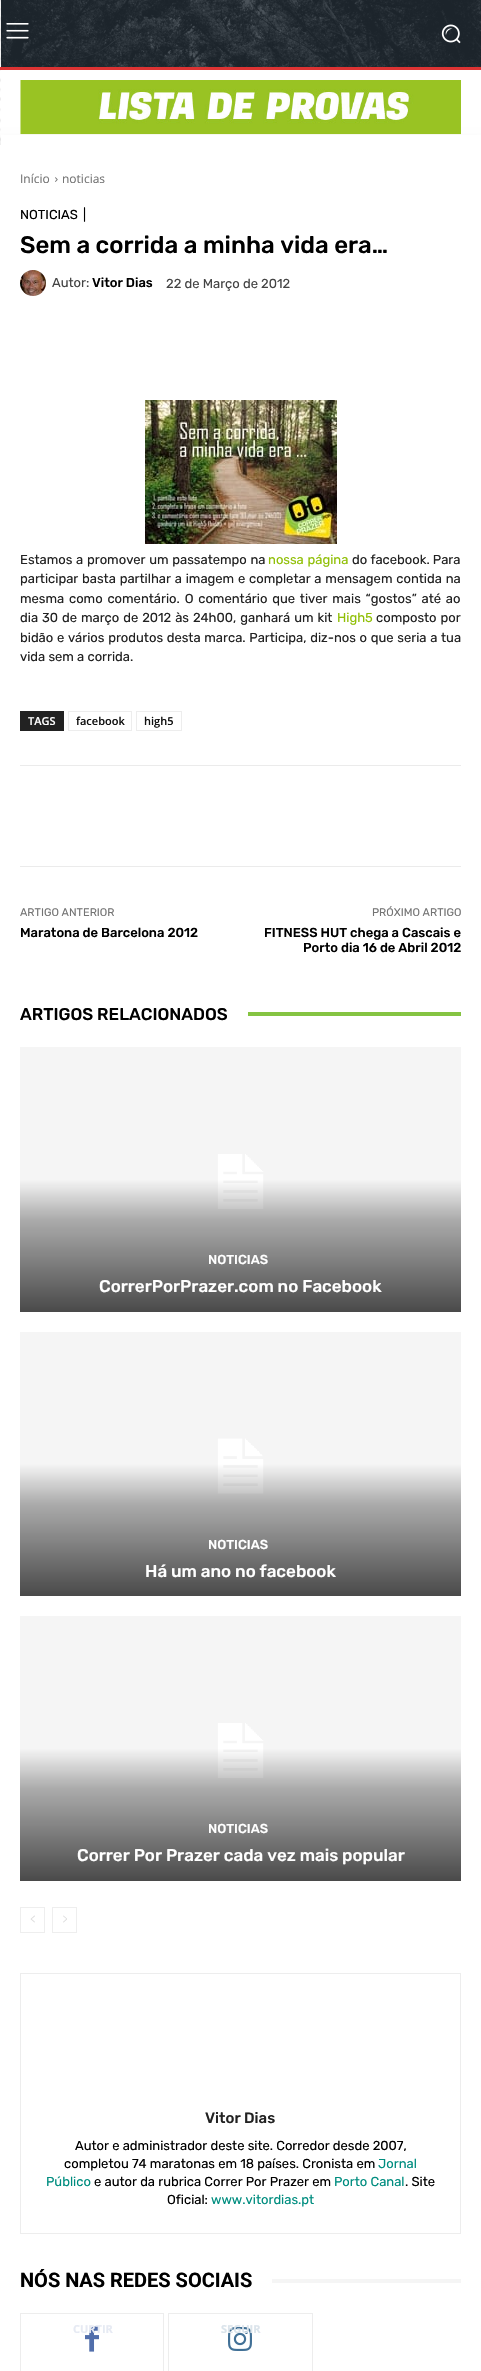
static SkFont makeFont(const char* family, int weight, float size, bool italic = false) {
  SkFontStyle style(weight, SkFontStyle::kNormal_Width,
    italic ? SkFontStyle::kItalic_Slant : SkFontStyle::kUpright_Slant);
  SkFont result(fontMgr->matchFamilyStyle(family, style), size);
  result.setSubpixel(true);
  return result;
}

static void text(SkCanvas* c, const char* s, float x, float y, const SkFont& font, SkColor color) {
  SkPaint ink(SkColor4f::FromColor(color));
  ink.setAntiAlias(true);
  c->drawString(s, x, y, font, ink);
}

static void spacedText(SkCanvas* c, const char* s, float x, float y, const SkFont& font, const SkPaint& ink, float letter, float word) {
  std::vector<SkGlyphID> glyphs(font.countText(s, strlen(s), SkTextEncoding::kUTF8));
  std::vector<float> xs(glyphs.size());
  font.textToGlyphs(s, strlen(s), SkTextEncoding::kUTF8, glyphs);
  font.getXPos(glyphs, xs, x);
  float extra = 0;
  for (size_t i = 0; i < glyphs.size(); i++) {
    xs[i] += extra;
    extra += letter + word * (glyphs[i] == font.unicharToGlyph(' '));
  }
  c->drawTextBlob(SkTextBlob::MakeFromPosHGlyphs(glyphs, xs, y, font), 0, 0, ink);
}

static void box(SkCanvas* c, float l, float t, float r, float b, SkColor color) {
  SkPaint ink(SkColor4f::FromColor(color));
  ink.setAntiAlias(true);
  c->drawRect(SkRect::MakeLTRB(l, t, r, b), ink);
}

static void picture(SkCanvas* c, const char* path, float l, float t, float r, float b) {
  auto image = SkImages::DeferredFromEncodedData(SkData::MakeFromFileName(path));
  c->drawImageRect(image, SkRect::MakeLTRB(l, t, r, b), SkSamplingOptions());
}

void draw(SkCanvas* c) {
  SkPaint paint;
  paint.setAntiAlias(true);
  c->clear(0xffffffff);
  picture(c, "img_01.png", 0, 0, 1, 145);
  box(c, 1, 0, 481, 67, 0xff232d35);
  picture(c, "img_02.png", 0, 0, 481, 67);
  picture(c, "img_03.png", 6, 23, 29, 39);
  picture(c, "img_04.png", 441, 24, 461, 44);
  box(c, 0, 67, 481, 70, 0xffdd3333);
  paint.setColor(0x1f000000);
  paint.setMaskFilter(SkMaskFilter::MakeBlur(kNormal_SkBlurStyle, 5));
  c->drawRect(SkRect::MakeLTRB(-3, 142, 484, 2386), paint);
  paint.setMaskFilter(nullptr);
  picture(c, "img_05.png", 20, 80, 461, 135);
  box(c, 1, 135, 481, 145, 0xffffffff);
  box(c, 0, 145, 481, 2371, 0xffffffff);
  SkFont face1 = makeFont("Open Sans", 400, 12);
  text(c, "Início", 20, 183, face1, 0xff747474);
  picture(c, "img_06.png", 55, 177, 58, 182);
  text(c, "noticias", 62, 183, face1, 0xff747474);
  SkFont face2 = makeFont("Rubik", 400, 13);
  text(c, "NOTICIAS", 20, 219, face2, 0xff000000);
  text(c, "|", 83, 219, face2, 0xff000000);
  SkFont face3 = makeFont("Rubik", 500, 24);
  text(c, "Sem a corrida a minha vida era…", 20, 253, face3, 0xff000000);
  picture(c, "img_07.png", 20, 270, 46, 296);
  text(c, "Autor:", 52, 287, face2, 0xff444444);
  SkFont face4 = makeFont("Rubik", 500, 13);
  text(c, "Vitor Dias", 92, 287, face4, 0xff000000);
  text(c, "22 de Março de 2012", 166, 288, face2, 0xff444444);
  picture(c, "img_08.png", 145, 400, 337, 544);
  paint.setColor(0xff222222);
  spacedText(c, "Estamos a promover um passatempo na", 20, 564, face2, paint, 0, 0.5f);
  paint.setColor(0xff90bf05);
  spacedText(c, "nossa página", 268, 564, face2, paint, 0, 0.5f);
  text(c, "do facebook. Para", 352, 564, face2, 0xff222222);
  paint.setColor(0xff222222);
  spacedText(c, "participar basta partilhar a imagem e completar a mensagem contida na", 20, 583, face2, paint, 0, 0.6f);
  spacedText(c, "mesma como comentário. O comentário que tiver mais “gostos” até ao", 20, 603, face2, paint, 0, 1.6f);
  spacedText(c, "dia 30 de março de 2012 às 24h00, ganhará um kit", 20, 622, face2, paint, 0, 0.75f);
  text(c, "High5", 337, 622, face2, 0xff90bf05);
  spacedText(c, "composto por", 376, 622, face2, paint, 0, 0.75f);
  spacedText(c, "bidão e vários produtos desta marca. Participa, diz-nos o que seria a tua", 20, 642, face2, paint, 0, 0.5f);
  text(c, "vida sem a corrida.", 20, 661, face2, 0xff222222);
  box(c, 20, 711, 64, 731, 0xff222222);
  SkFont face5 = makeFont("Open Sans", 600, 11);
  text(c, "TAGS", 28, 725, face5, 0xffffffff);
  paint.setStyle(SkPaint::kStroke_Style);
  paint.setStrokeWidth(1);
  paint.setColor(0xffededed);
  c->drawRect(SkRect::MakeLTRB(68.5f, 711.5f, 131.5f, 730.5f), paint);
  text(c, "facebook", 76, 725, face5, 0xff111111);
  c->drawRect(SkRect::MakeLTRB(136.5f, 711.5f, 181.5f, 730.5f), paint);
  text(c, "high5", 144, 725, face5, 0xff111111);
  box(c, 20, 765, 461, 766, 0xffebebeb);
  box(c, 20, 866, 461, 867, 0xffebebeb);
  SkFont face6 = makeFont("Rubik", 400, 11);
  text(c, "ARTIGO ANTERIOR", 20, 916, face6, 0xff747474);
  text(c, "Maratona de Barcelona 2012", 20, 937, face4, 0xff000000);
  text(c, "PRÓXIMO ARTIGO", 372, 916, face6, 0xff747474);
  text(c, "FITNESS HUT chega a Cascais e", 264, 937, face4, 0xff000000);
  text(c, "Porto dia 16 de Abril 2012", 303, 952, face4, 0xff000000);
  SkFont face7 = makeFont("Rubik", 500, 17);
  text(c, "ARTIGOS RELACIONADOS", 20, 1020, face7, 0xff000000);
  box(c, 248, 1012, 461, 1016, 0xff85c442);
  picture(c, "img_09.png", 20, 1047, 461, 1312);
  text(c, "NOTICIAS", 208, 1264, face4, 0xffffffff);
  text(c, "CorrerPorPrazer.com no Facebook", 99, 1292, face7, 0xffffffff);
  picture(c, "img_10.png", 20, 1332, 461, 1596);
  text(c, "NOTICIAS", 208, 1549, face4, 0xffffffff);
  text(c, "Há um ano no facebook", 145, 1577, face7, 0xffffffff);
  picture(c, "img_09.png", 20, 1616, 461, 1881);
  text(c, "NOTICIAS", 208, 1833, face4, 0xffffffff);
  text(c, "Correr Por Prazer cada vez mais popular", 77, 1861, face7, 0xffffffff);
  paint.setColor(0xffeeeeee);
  c->drawRect(SkRect::MakeLTRB(20.5f, 1907.5f, 44.5f, 1932.5f), paint);
  picture(c, "img_11.png", 30, 1915, 35, 1923);
  c->drawRect(SkRect::MakeLTRB(52.5f, 1907.5f, 76.5f, 1932.5f), paint);
  picture(c, "img_12.png", 63, 1915, 67, 1923);
  paint.setColor(0xffededed);
  c->drawRect(SkRect::MakeLTRB(20.5f, 1973.5f, 460.5f, 2233.5f), paint);
  SkFont face8 = makeFont("Rubik", 500, 15);
  text(c, "Vitor Dias", 205, 2123, face8, 0xff222222);
  text(c, "Autor e administrador deste site. Corredor desde 2007,", 75, 2150, face2, 0xff000000);
  text(c, "completou 74 maratonas em 18 países. Cronista em", 64, 2168, face2, 0xff000000);
  text(c, "Jornal", 378, 2168, face2, 0xff008d7f);
  text(c, "Público", 46, 2186, face2, 0xff008d7f);
  text(c, "e autor da rubrica Correr Por Prazer em", 94, 2186, face2, 0xff000000);
  text(c, "Porto Canal", 334, 2186, face2, 0xff008d7f);
  text(c, ". Site", 405, 2186, face2, 0xff000000);
  text(c, "Oficial:", 167, 2204, face2, 0xff000000);
  text(c, "www.vitordias.pt", 211, 2204, face2, 0xff008d7f);
  SkFont face9 = makeFont("Roboto", 700, 20);
  text(c, "NÓS NAS REDES SOCIAIS", 20, 2287, face9, 0xff000000);
  box(c, 272, 2279, 461, 2283, 0xfff5f5f5);
  c->drawRect(SkRect::MakeLTRB(20.5f, 2313.5f, 163.5f, 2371.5f), paint);
  picture(c, "img_13.png", 85, 2326, 99, 2352);
  SkFont face10 = makeFont("Open Sans", 700, 11);
  text(c, "CURTIR", 73, 2333, face10, 0xffe6eaf3);
  c->drawRect(SkRect::MakeLTRB(168.5f, 2313.5f, 312.5f, 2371.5f), paint);
  picture(c, "img_14.png", 228, 2327, 252, 2351);
  text(c, "SEGUIR", 221, 2333, face10, 0xffdbe4eb);
}
